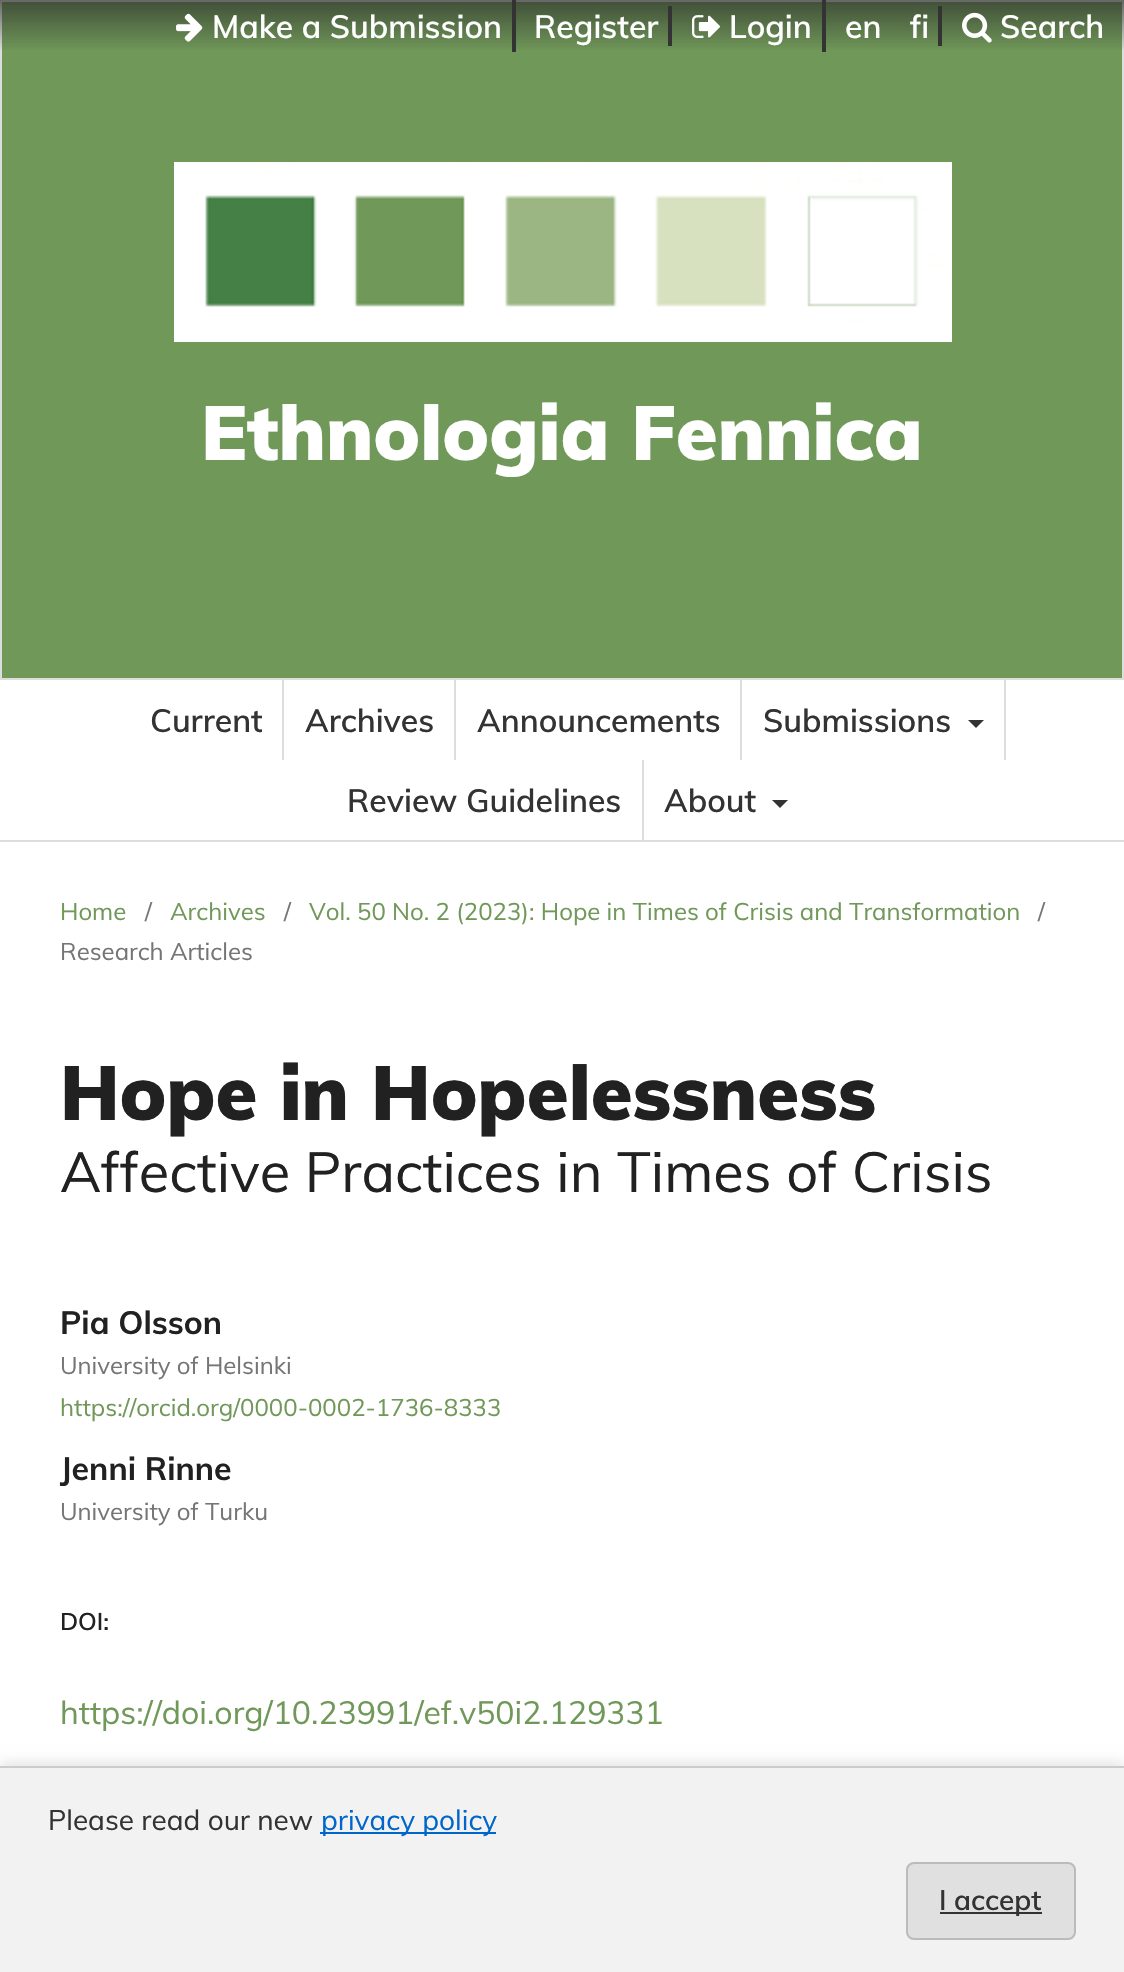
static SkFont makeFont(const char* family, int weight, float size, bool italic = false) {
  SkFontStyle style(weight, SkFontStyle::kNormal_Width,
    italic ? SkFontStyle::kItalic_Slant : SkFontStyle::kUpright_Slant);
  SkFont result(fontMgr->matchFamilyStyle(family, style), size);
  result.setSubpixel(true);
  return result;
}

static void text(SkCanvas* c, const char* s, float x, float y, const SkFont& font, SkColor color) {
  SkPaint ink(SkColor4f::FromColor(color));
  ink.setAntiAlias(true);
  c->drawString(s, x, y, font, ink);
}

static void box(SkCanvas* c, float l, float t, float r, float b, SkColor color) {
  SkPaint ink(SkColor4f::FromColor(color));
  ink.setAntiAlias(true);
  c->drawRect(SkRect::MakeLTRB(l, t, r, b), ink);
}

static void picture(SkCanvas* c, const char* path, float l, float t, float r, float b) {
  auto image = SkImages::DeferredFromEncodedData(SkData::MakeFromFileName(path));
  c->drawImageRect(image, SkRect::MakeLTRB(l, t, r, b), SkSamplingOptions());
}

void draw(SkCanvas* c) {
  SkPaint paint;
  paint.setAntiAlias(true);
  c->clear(0xffffffff);
  paint.setColor(0xff709859);
  c->drawRect(SkRect::MakeLTRB(1, 1, 1123, 679), paint);
  paint.setStyle(SkPaint::kStroke_Style);
  paint.setStrokeWidth(2);
  paint.setColor(0xffdddddd);
  c->drawRect(SkRect::MakeLTRB(1, 1, 1123, 679), paint);
  paint.setStyle(SkPaint::kFill_Style);
  {
    const SkColor colors[] = {0xa6262626, 0x00262626};
    const float stops[] = {0, 1};
    const SkPoint ends[] = {{562, 0}, {562, 52}};
    paint.setShader(SkGradientShader::MakeLinear(ends, colors, stops, 2, SkTileMode::kClamp));
    paint.setAlpha(255);
  }
  c->drawRect(SkRect::MakeLTRB(0, 0, 1124, 50), paint);
  box(c, 512, 0, 516, 52, 0xff333333);
  picture(c, "img_01.png", 176, 13, 203, 42);
  SkFont face1 = makeFont("Muli", 600, 32);
  text(c, "Make a Submission", 212, 38, face1, 0xffffffff);
  box(c, 668, 6, 672, 46, 0xff333333);
  text(c, "Register", 534, 38, face1, 0xffffffff);
  box(c, 822, 0, 826, 52, 0xff333333);
  picture(c, "img_02.png", 692, 15, 720, 38);
  text(c, "Login", 729, 38, face1, 0xffffffff);
  box(c, 938, 6, 942, 46, 0xff333333);
  text(c, "en", 845, 38, face1, 0xffffffff);
  text(c, "fi", 910, 38, face1, 0xffffffff);
  picture(c, "img_03.png", 962, 12, 992, 43);
  text(c, "Search", 1000, 38, face1, 0xffffffff);
  picture(c, "img_04.png", 174, 162, 952, 342);
  SkFont face2 = makeFont("Muli", 900, 76);
  text(c, "Ethnologia Fennica", 201, 460, face2, 0xffffffff);
  box(c, 0, 840, 1124, 842, 0xffdddddd);
  box(c, 282, 680, 284, 760, 0xffdddddd);
  text(c, "Current", 150, 732, face1, 0xff333333);
  box(c, 454, 680, 456, 760, 0xffdddddd);
  text(c, "Archives", 305, 732, face1, 0xff333333);
  box(c, 740, 680, 742, 760, 0xffdddddd);
  text(c, "Announcements", 477, 732, face1, 0xff333333);
  box(c, 1004, 680, 1006, 760, 0xffdddddd);
  text(c, "Submissions", 763, 732, face1, 0xff333333);
  paint.setShader(nullptr);
  paint.setColor(0xff333333);
  c->drawPath(SkPathBuilder().moveTo(968, 720).lineTo(984, 720).lineTo(976, 728).close().detach(), paint);
  box(c, 642, 760, 644, 840, 0xffdddddd);
  text(c, "Review Guidelines", 347, 812, face1, 0xff333333);
  text(c, "About", 664, 812, face1, 0xff333333);
  c->drawPath(SkPathBuilder().moveTo(772, 800).lineTo(788, 800).lineTo(780, 808).close().detach(), paint);
  SkFont face3 = makeFont("Muli", 400, 24);
  text(c, "Home", 60, 920, face3, 0xff709859);
  text(c, "/", 145, 920, face3, 0xff757575);
  text(c, "Archives", 170, 920, face3, 0xff709859);
  text(c, "/", 284, 920, face3, 0xff757575);
  text(c, "Vol. 50 No. 2 (2023): Hope in Times of Crisis and Transformation", 309, 920, face3, 0xff709859);
  text(c, "/", 1038, 920, face3, 0xff757575);
  text(c, "Research Articles", 60, 960, face3, 0xff757575);
  text(c, "Hope in Hopelessness", 60, 1120, face2, 0xff212121);
  SkFont face4 = makeFont("Muli", 400, 56);
  text(c, "Affective Practices in Times of Crisis", 60, 1192, face4, 0xff212121);
  SkFont face5 = makeFont("Muli", 700, 32);
  text(c, "Pia Olsson", 60, 1334, face5, 0xff212121);
  text(c, "University of Helsinki", 60, 1374, face3, 0xff757575);
  text(c, "https://orcid.org/0000-0002-1736-8333", 60, 1416, face3, 0xff709859);
  text(c, "Jenni Rinne", 60, 1480, face5, 0xff212121);
  text(c, "University of Turku", 60, 1520, face3, 0xff757575);
  SkFont face6 = makeFont("Muli", 600, 24);
  text(c, "DOI:", 60, 1630, face6, 0xff212121);
  SkFont face7 = makeFont("Muli", 400, 32);
  text(c, "https://doi.org/10.23991/ef.v50i2.129331", 60, 1724, face7, 0xff709859);
  paint.setColor(0x1a000000);
  paint.setMaskFilter(SkMaskFilter::MakeBlur(kNormal_SkBlurStyle, 6));
  c->drawRect(SkRect::MakeLTRB(0, 1762, 1124, 1968), paint);
  paint.setMaskFilter(nullptr);
  box(c, 0, 1768, 1124, 1972, 0xfff2f2f2);
  box(c, 0, 1766, 1124, 1768, 0xffcccccc);
  SkFont face8 = makeFont("Muli", 400, 28);
  text(c, "Please read our new", 48, 1830, face8, 0xff333333);
  box(c, 320, 1832, 496, 1834, 0xff0066cc);
  text(c, "privacy policy", 321, 1830, face8, 0xff0066cc);
  paint.setColor(0xffe0e0e0);
  c->drawRoundRect(SkRect::MakeLTRB(907, 1863, 1075, 1939), 7, 7, paint);
  paint.setStyle(SkPaint::kStroke_Style);
  paint.setColor(0xffbbbbbb);
  c->drawRoundRect(SkRect::MakeLTRB(907, 1863, 1075, 1939), 7, 7, paint);
  box(c, 940, 1912, 1042, 1914, 0xff333333);
  SkFont face9 = makeFont("Muli", 600, 28);
  text(c, "I accept", 939, 1910, face9, 0xff333333);
}
